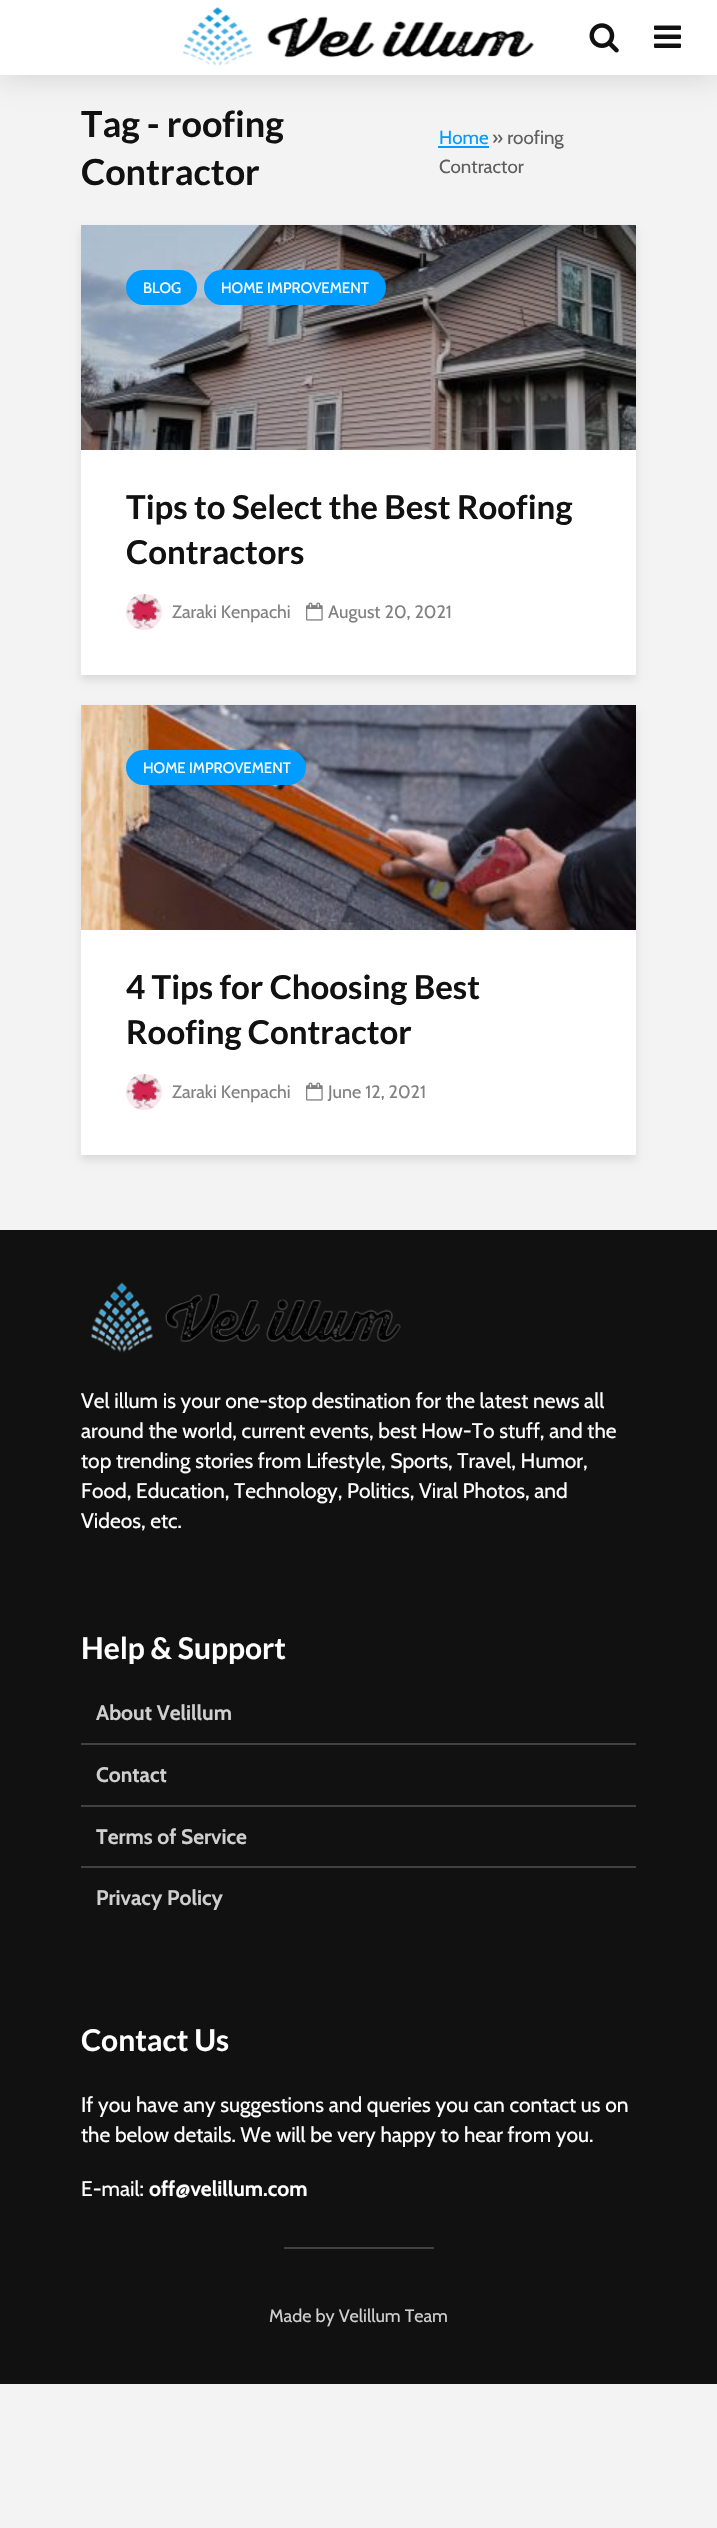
static SkFont makeFont(const char* family, int weight, float size, bool italic = false) {
  SkFontStyle style(weight, SkFontStyle::kNormal_Width,
    italic ? SkFontStyle::kItalic_Slant : SkFontStyle::kUpright_Slant);
  SkFont result(fontMgr->matchFamilyStyle(family, style), size);
  result.setSubpixel(true);
  return result;
}

static void text(SkCanvas* c, const char* s, float x, float y, const SkFont& font, SkColor color) {
  SkPaint ink(SkColor4f::FromColor(color));
  ink.setAntiAlias(true);
  c->drawString(s, x, y, font, ink);
}

static void box(SkCanvas* c, float l, float t, float r, float b, SkColor color) {
  SkPaint ink(SkColor4f::FromColor(color));
  ink.setAntiAlias(true);
  c->drawRect(SkRect::MakeLTRB(l, t, r, b), ink);
}

static void roundBox(SkCanvas* c, float l, float t, float r, float b, float radius, SkColor color) {
  SkPaint ink(SkColor4f::FromColor(color));
  ink.setAntiAlias(true);
  c->drawRoundRect(SkRect::MakeLTRB(l, t, r, b), radius, radius, ink);
}

static void picture(SkCanvas* c, const char* path, float l, float t, float r, float b) {
  auto image = SkImages::DeferredFromEncodedData(SkData::MakeFromFileName(path));
  c->drawImageRect(image, SkRect::MakeLTRB(l, t, r, b), SkSamplingOptions());
}

void draw(SkCanvas* c) {
  SkPaint paint;
  paint.setAntiAlias(true);
  c->clear(0xfff3f3f3);
  paint.setColor(0x26000000);
  paint.setMaskFilter(SkMaskFilter::MakeBlur(kNormal_SkBlurStyle, 15));
  c->drawRect(SkRect::MakeLTRB(0, 0, 717, 75), paint);
  paint.setMaskFilter(nullptr);
  box(c, 0, 0, 717, 75, 0xffffffff);
  picture(c, "img_01.png", 182, 6, 535, 66);
  picture(c, "img_02.png", 589, 23, 619, 53);
  picture(c, "img_03.png", 654, 25, 681, 48);
  SkFont face1 = makeFont("Lato", 700, 36);
  text(c, "Tag - roofing", 81, 137, face1, 0xff111111);
  text(c, "Contractor", 81, 185, face1, 0xff111111);
  SkFont face2 = makeFont("Cabin", 400, 18.75f);
  text(c, "Home", 439, 144, face2, 0xff009cff);
  box(c, 438, 146, 489, 148, 0xff009cff);
  text(c, "» roofing", 492, 144, face2, 0xff5e5e5e);
  text(c, "Contractor", 439, 173, face2, 0xff5e5e5e);
  paint.setColor(0x1a000101);
  paint.setMaskFilter(SkMaskFilter::MakeBlur(kNormal_SkBlurStyle, 4));
  c->drawRect(SkRect::MakeLTRB(81, 230, 636, 680), paint);
  paint.setMaskFilter(nullptr);
  box(c, 81, 450, 636, 675, 0xffffffff);
  picture(c, "img_04.png", 81, 225, 636, 450);
  roundBox(c, 126, 270, 197, 305, 17.5f, 0xff009cff);
  SkFont face3 = makeFont("Cabin", 400, 15);
  text(c, "BLOG", 143, 293, face3, 0xffffffff);
  roundBox(c, 204, 270, 386, 305, 17.5f, 0xff009cff);
  text(c, "HOME IMPROVEMENT", 221, 293, face3, 0xffffffff);
  SkFont face4 = makeFont("Lato", 700, 33);
  text(c, "Tips to Select the Best Roofing", 126, 519, face4, 0xff111111);
  text(c, "Contractors", 126, 564, face4, 0xff111111);
  picture(c, "img_05.png", 126, 594, 162, 630);
  SkFont face5 = makeFont("Cabin", 400, 18);
  text(c, "Zaraki Kenpachi", 172, 618, face5, 0xff818181);
  picture(c, "img_06.png", 306, 602, 323, 621);
  text(c, "August 20, 2021", 328, 618, face5, 0xff818181);
  paint.setMaskFilter(SkMaskFilter::MakeBlur(kNormal_SkBlurStyle, 4));
  c->drawRect(SkRect::MakeLTRB(81, 710, 636, 1160), paint);
  paint.setMaskFilter(nullptr);
  box(c, 81, 930, 636, 1155, 0xffffffff);
  picture(c, "img_07.png", 81, 705, 636, 930);
  roundBox(c, 126, 750, 306, 785, 17.5f, 0xff009cff);
  text(c, "HOME IMPROVEMENT", 143, 773, face3, 0xffffffff);
  text(c, "4 Tips for Choosing Best", 126, 999, face4, 0xff111111);
  text(c, "Roofing Contractor", 126, 1044, face4, 0xff111111);
  picture(c, "img_05.png", 126, 1074, 162, 1110);
  text(c, "Zaraki Kenpachi", 172, 1098, face5, 0xff818181);
  picture(c, "img_06.png", 306, 1082, 323, 1101);
  text(c, "June 12, 2021", 328, 1098, face5, 0xff818181);
  box(c, 0, 1230, 717, 2384, 0xff111111);
  picture(c, "img_08.png", 91, 1282, 401, 1353);
  SkFont face6 = makeFont("Cabin", 400, 21);
  text(c, "Vel illum is your one-stop destination for the latest news all", 81, 1408, face6, 0xffffffff);
  text(c, "around the world, current events, best How-To stuff, and the", 81, 1438, face6, 0xffffffff);
  text(c, "top trending stories from Lifestyle, Sports, Travel, Humor,", 81, 1468, face6, 0xffffffff);
  text(c, "Food, Education, Technology, Politics, Viral Photos, and", 81, 1498, face6, 0xffffffff);
  text(c, "Videos, etc.", 81, 1528, face6, 0xffffffff);
  SkFont face7 = makeFont("Lato", 700, 30);
  text(c, "Help & Support", 81, 1659, face7, 0xffffffff);
  box(c, 81, 1743, 636, 1745, 0xff414141);
  SkFont face8 = makeFont("Cabin", 700, 21);
  text(c, "About Velillum", 96, 1720, face8, 0xffcfcfcf);
  box(c, 81, 1805, 636, 1807, 0xff414141);
  text(c, "Contact", 96, 1782, face8, 0xffcfcfcf);
  box(c, 81, 1866, 636, 1868, 0xff414141);
  text(c, "Terms of Service", 96, 1844, face8, 0xffcfcfcf);
  text(c, "Privacy Policy", 96, 1905, face8, 0xffcfcfcf);
  text(c, "Contact Us", 81, 2051, face7, 0xffffffff);
  text(c, "If you have any suggestions and queries you can contact us on", 81, 2112, face6, 0xffffffff);
  text(c, "the below details. We will be very happy to hear from you.", 81, 2142, face6, 0xffffffff);
  text(c, "E-mail:", 81, 2196, face6, 0xffffffff);
  text(c, "off@velillum.com", 149, 2196, face8, 0xffffffff);
  box(c, 284, 2247, 434, 2249, 0xff414141);
  text(c, "Made by Velillum Team", 269, 2322, face5, 0xffcfcfcf);
}
